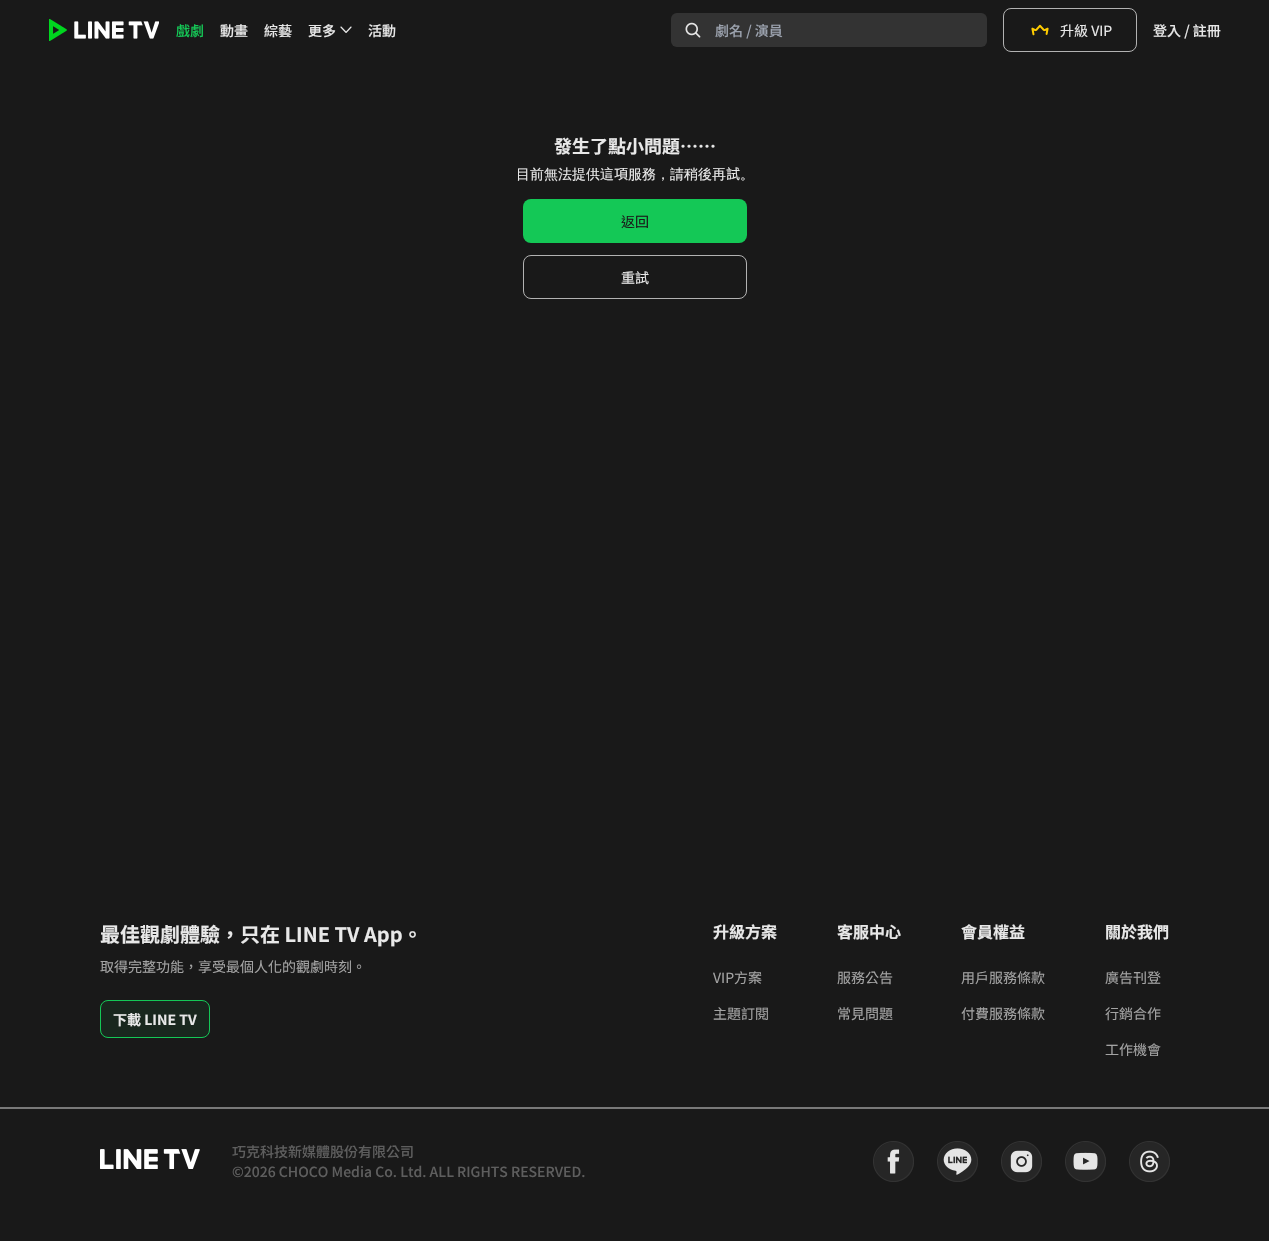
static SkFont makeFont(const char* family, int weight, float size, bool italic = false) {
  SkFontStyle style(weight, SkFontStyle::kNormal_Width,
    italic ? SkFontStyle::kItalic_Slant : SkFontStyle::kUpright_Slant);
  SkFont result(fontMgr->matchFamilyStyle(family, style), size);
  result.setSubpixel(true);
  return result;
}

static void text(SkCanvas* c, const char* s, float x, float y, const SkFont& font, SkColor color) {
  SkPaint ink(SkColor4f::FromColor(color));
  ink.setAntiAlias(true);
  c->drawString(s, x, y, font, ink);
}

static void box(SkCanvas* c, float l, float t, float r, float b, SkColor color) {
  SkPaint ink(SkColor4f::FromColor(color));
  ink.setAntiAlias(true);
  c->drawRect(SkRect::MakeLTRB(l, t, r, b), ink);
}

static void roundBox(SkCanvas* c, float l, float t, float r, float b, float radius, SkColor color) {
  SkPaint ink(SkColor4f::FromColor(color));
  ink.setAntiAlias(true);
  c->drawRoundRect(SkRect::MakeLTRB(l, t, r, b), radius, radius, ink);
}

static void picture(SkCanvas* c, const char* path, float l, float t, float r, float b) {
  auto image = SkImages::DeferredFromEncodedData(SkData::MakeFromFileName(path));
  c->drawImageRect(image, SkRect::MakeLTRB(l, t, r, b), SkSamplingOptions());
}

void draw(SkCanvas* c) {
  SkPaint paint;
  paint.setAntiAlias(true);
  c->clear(0xff191919);
  picture(c, "img_01.png", 49, 19, 159, 41);
  SkFont face1 = makeFont("Noto Sans TC", 500, 14);
  text(c, "戲劇", 176, 36, face1, 0xff14c856);
  text(c, "動畫", 220, 36, face1, 0xffe8e8e8);
  text(c, "綜藝", 264, 36, face1, 0xffe8e8e8);
  text(c, "更多", 308, 36, face1, 0xffe8e8e8);
  picture(c, "img_02.png", 340, 26, 352, 33);
  text(c, "活動", 368, 36, face1, 0xffe8e8e8);
  roundBox(c, 671, 13, 987, 47, 6, 0xff333333);
  picture(c, "img_03.png", 685, 22, 701, 38);
  text(c, "劇名 / 演員", 715, 36, face1, 0xff9ca3af);
  paint.setStyle(SkPaint::kStroke_Style);
  paint.setStrokeWidth(1);
  paint.setColor(0xffb2b2b2);
  c->drawRoundRect(SkRect::MakeLTRB(1003.5f, 8.5f, 1136.5f, 51.5f), 7.5f, 7.5f, paint);
  picture(c, "img_04.png", 1031, 24, 1049, 36);
  SkFont face2 = makeFont("Noto Sans TC", 400, 14);
  text(c, "升級 VIP", 1060, 36, face2, 0xffe8e8e8);
  text(c, "登入 / 註冊", 1153, 36, face1, 0xffe8e8e8);
  SkFont face3 = makeFont("Noto Sans TC", 700, 18);
  text(c, "發生了點小問題……", 554, 153, face3, 0xffe8e8e8);
  SkFont face4 = makeFont("WenQuanYi Zen Hei", 500, 14);
  text(c, "目前無法提供這", 516, 179, face4, 0xffe8e8e8);
  text(c, "項", 614, 179, face2, 0xffe8e8e8);
  text(c, "服務，請稍後再", 628, 179, face4, 0xffe8e8e8);
  text(c, "試", 726, 179, face2, 0xffe8e8e8);
  text(c, "。", 740, 179, face4, 0xffe8e8e8);
  roundBox(c, 523, 199, 747, 243, 8, 0xff14c856);
  text(c, "返回", 621, 227, face2, 0xff191919);
  c->drawRoundRect(SkRect::MakeLTRB(523.5f, 255.5f, 746.5f, 298.5f), 7.5f, 7.5f, paint);
  text(c, "重試", 621, 283, face2, 0xffe8e8e8);
  SkFont face5 = makeFont("Noto Sans TC", 700, 20);
  text(c, "最佳觀劇體驗，只在 LINE TV App。", 100, 942, face5, 0xffe8e8e8);
  text(c, "取得完整功能，享受最個人化的觀劇時刻。", 100, 972, face2, 0xffa3a3a3);
  paint.setStyle(SkPaint::kFill_Style);
  paint.setColor(0xff19271e);
  c->drawRoundRect(SkRect::MakeLTRB(100.5f, 1000.5f, 209.5f, 1037.5f), 7.5f, 7.5f, paint);
  paint.setStyle(SkPaint::kStroke_Style);
  paint.setColor(0xff14c856);
  c->drawRoundRect(SkRect::MakeLTRB(100.5f, 1000.5f, 209.5f, 1037.5f), 7.5f, 7.5f, paint);
  SkFont face6 = makeFont("Noto Sans TC", 700, 14);
  text(c, "下載 LINE TV", 113, 1025, face6, 0xffe8e8e8);
  SkFont face7 = makeFont("Noto Sans TC", 700, 16);
  text(c, "升級方案", 713, 938, face7, 0xffe8e8e8);
  text(c, "VIP方案", 713, 983, face2, 0xffa3a3a3);
  text(c, "主題訂閱", 713, 1019, face2, 0xffa3a3a3);
  text(c, "客服中心", 837, 938, face7, 0xffe8e8e8);
  text(c, "服務公告", 837, 983, face2, 0xffa3a3a3);
  text(c, "常見問題", 837, 1019, face2, 0xffa3a3a3);
  text(c, "會員權益", 961, 938, face7, 0xffe8e8e8);
  text(c, "用戶服務條款", 961, 983, face2, 0xffa3a3a3);
  text(c, "付費服務條款", 961, 1019, face2, 0xffa3a3a3);
  text(c, "關於我們", 1105, 938, face7, 0xffe8e8e8);
  text(c, "廣告刊登", 1105, 983, face2, 0xffa3a3a3);
  text(c, "行銷合作", 1105, 1019, face2, 0xffa3a3a3);
  text(c, "工作機會", 1105, 1055, face2, 0xffa3a3a3);
  box(c, 0, 1107, 1269, 1109, 0xff797979);
  picture(c, "img_05.png", 100, 1149, 200, 1169);
  text(c, "巧克科技新媒體股份有限公司", 232, 1157, face1, 0xff5e5e5e);
  text(c, "©2026 CHOCO Media Co. Ltd. ALL RIGHTS RESERVED.", 232, 1177, face1, 0xff5e5e5e);
  picture(c, "img_06.png", 873, 1141, 914, 1182);
  picture(c, "img_07.png", 937, 1141, 978, 1182);
  picture(c, "img_08.png", 1001, 1141, 1042, 1182);
  picture(c, "img_09.png", 1065, 1141, 1106, 1182);
  picture(c, "img_10.png", 1129, 1141, 1170, 1182);
}
